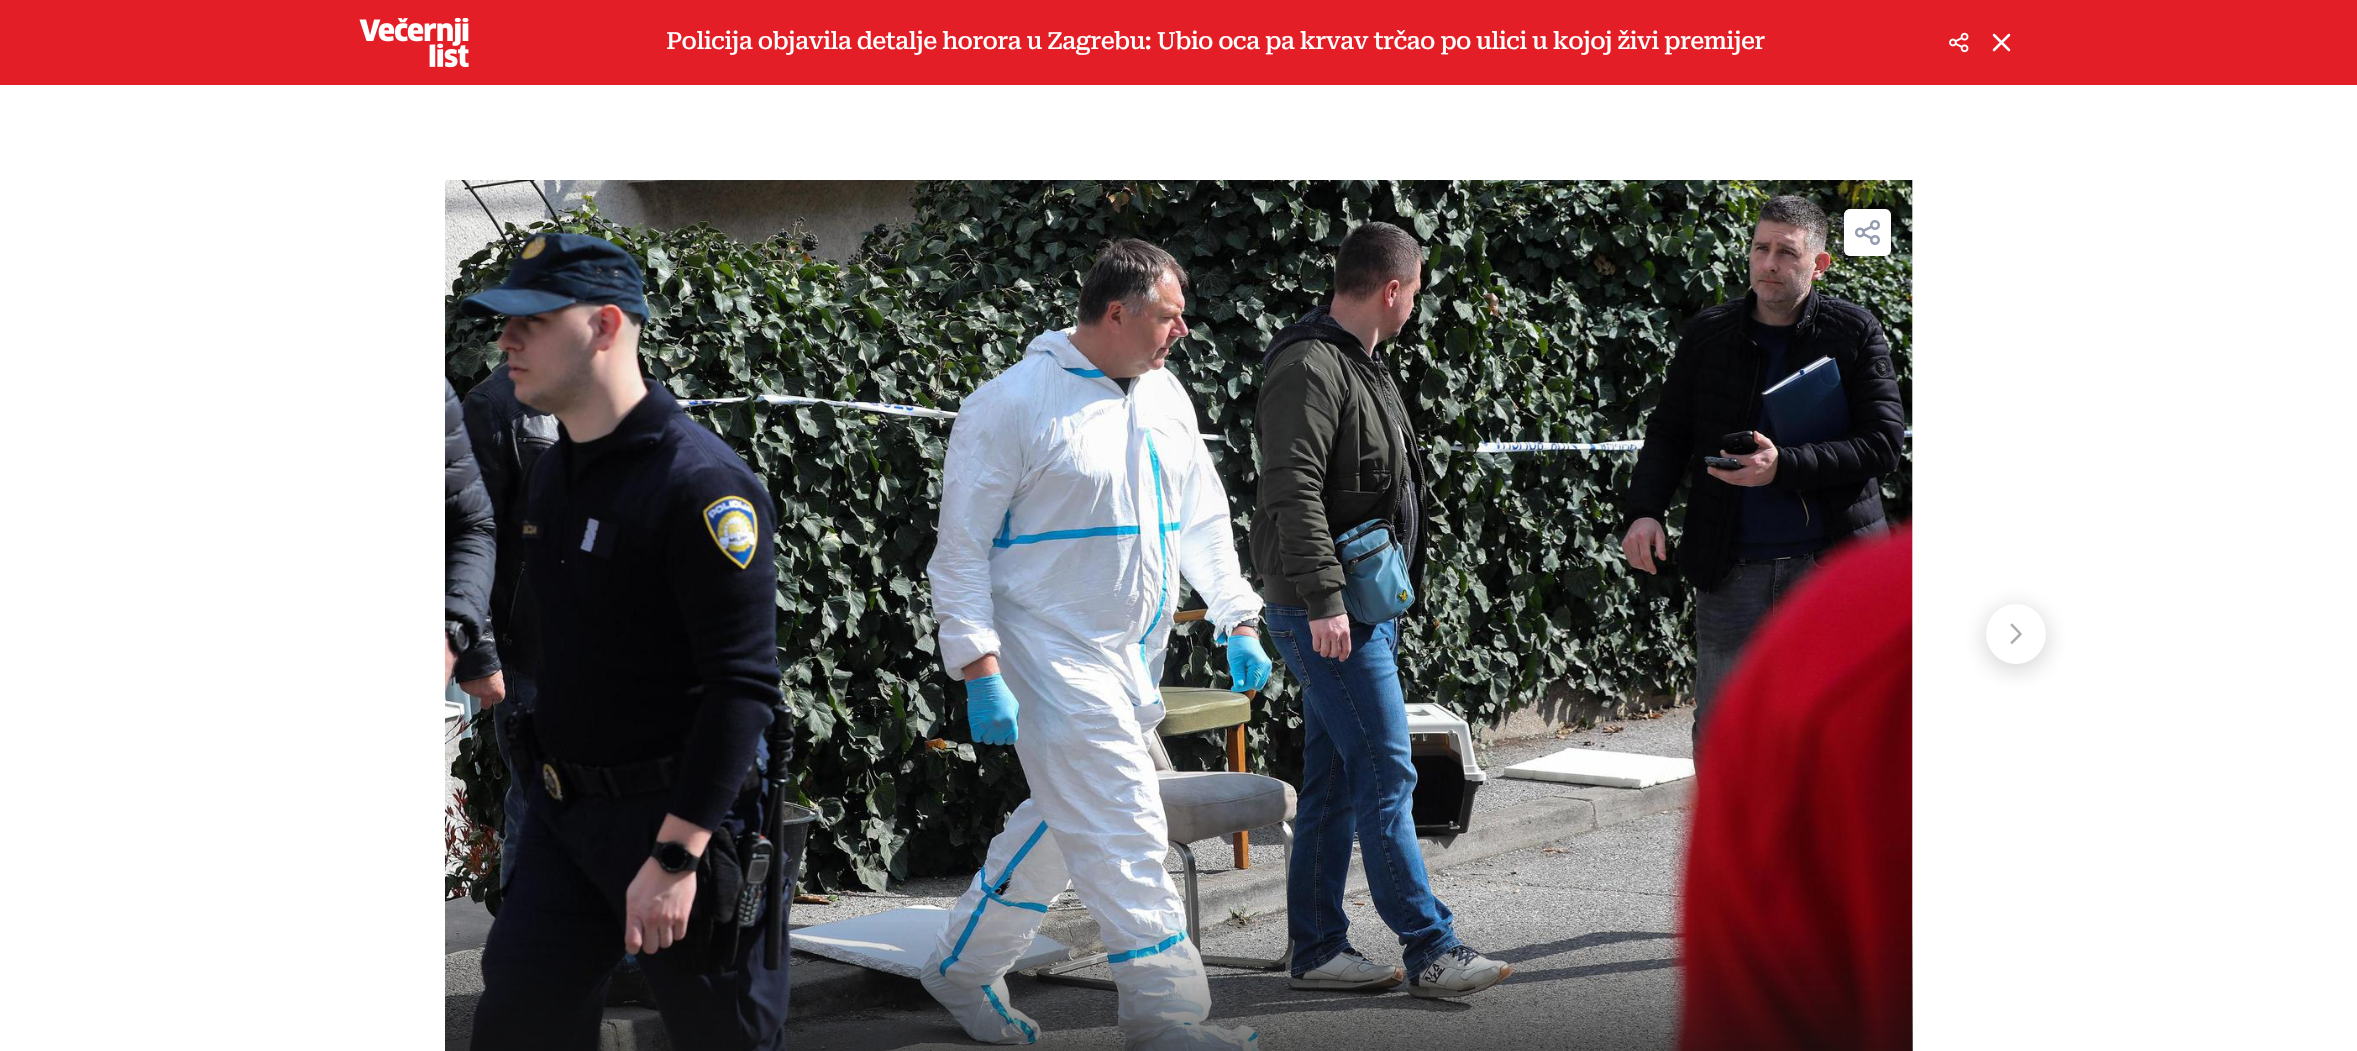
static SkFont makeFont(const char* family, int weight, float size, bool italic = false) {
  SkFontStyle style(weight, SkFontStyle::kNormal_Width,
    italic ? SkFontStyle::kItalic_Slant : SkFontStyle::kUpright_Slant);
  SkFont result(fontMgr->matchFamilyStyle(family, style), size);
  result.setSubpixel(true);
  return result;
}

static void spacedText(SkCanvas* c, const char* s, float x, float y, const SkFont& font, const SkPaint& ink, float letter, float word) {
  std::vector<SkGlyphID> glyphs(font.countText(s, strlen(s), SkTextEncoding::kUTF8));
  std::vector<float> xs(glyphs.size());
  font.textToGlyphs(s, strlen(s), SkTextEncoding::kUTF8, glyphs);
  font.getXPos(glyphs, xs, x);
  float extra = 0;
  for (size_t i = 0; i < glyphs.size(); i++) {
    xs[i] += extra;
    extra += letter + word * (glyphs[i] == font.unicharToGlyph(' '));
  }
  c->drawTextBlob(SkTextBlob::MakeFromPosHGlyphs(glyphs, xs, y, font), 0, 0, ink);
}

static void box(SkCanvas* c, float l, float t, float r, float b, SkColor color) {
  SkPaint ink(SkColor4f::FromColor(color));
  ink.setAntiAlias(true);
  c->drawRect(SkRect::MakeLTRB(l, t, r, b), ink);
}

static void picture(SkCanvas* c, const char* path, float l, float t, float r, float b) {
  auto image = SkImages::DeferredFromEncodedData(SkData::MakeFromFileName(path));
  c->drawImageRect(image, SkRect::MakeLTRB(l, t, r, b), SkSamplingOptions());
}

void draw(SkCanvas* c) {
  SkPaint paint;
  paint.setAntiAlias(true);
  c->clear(0xffffffff);
  box(c, 0, 0, 2357, 85, 0xffe41e27);
  picture(c, "img_01.png", 359, 18, 469, 68);
  SkFont face1 = makeFont("Roboto Serif", 500, 23.75f);
  paint.setColor(0xffffffff);
  spacedText(c, "Policija objavila detalje horora u Zagrebu: Ubio oca pa krvav trčao po ulici u kojoj živi premijer", 666, 49, face1, paint, -0.7f, 0);
  picture(c, "img_02.png", 1949, 32, 1969, 53);
  paint.setStyle(SkPaint::kStroke_Style);
  paint.setStrokeWidth(2.5f);
  paint.setStrokeCap(SkPaint::kRound_Cap);
  paint.setStrokeJoin(SkPaint::kRound_Join);
  c->drawPath(SkPathBuilder().moveTo(1994, 50).lineTo(2009, 35).moveTo(1994, 35).lineTo(2009, 50).detach(), paint);
  box(c, 1912, 180, 1913, 1051, 0xffeeeeee);
  picture(c, "img_03.png", 445, 180, 1913, 1051);
  picture(c, "img_04.png", 1844, 209, 1891, 256);
  paint.setStyle(SkPaint::kFill_Style);
  {
    const SkColor colors[] = {0x00111111, 0xcc111111};
    const float stops[] = {0, 1};
    const SkPoint ends[] = {{1179, 917}, {1179, 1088}};
    paint.setShader(SkGradientShader::MakeLinear(ends, colors, stops, 2, SkTileMode::kClamp));
    paint.setAlpha(255);
  }
  c->drawRect(SkRect::MakeLTRB(445, 922, 1913, 1051), paint);
  paint.setShader(nullptr);
  paint.setColor(0x33111111);
  paint.setMaskFilter(SkMaskFilter::MakeBlur(kNormal_SkBlurStyle, 12.5f));
  c->drawRoundRect(SkRect::MakeLTRB(1986, 609, 2046, 669), 30, 30, paint);
  paint.setMaskFilter(nullptr);
  paint.setColor(0xffffffff);
  c->drawCircle(2016, 634, 30, paint);
  paint.setStyle(SkPaint::kStroke_Style);
  paint.setStrokeCap(SkPaint::kSquare_Cap);
  paint.setColor(0xffacacac);
  c->drawPath(SkPathBuilder().moveTo(2012, 625).lineTo(2020.5f, 634).lineTo(2012, 642.5f).detach(), paint);
}
